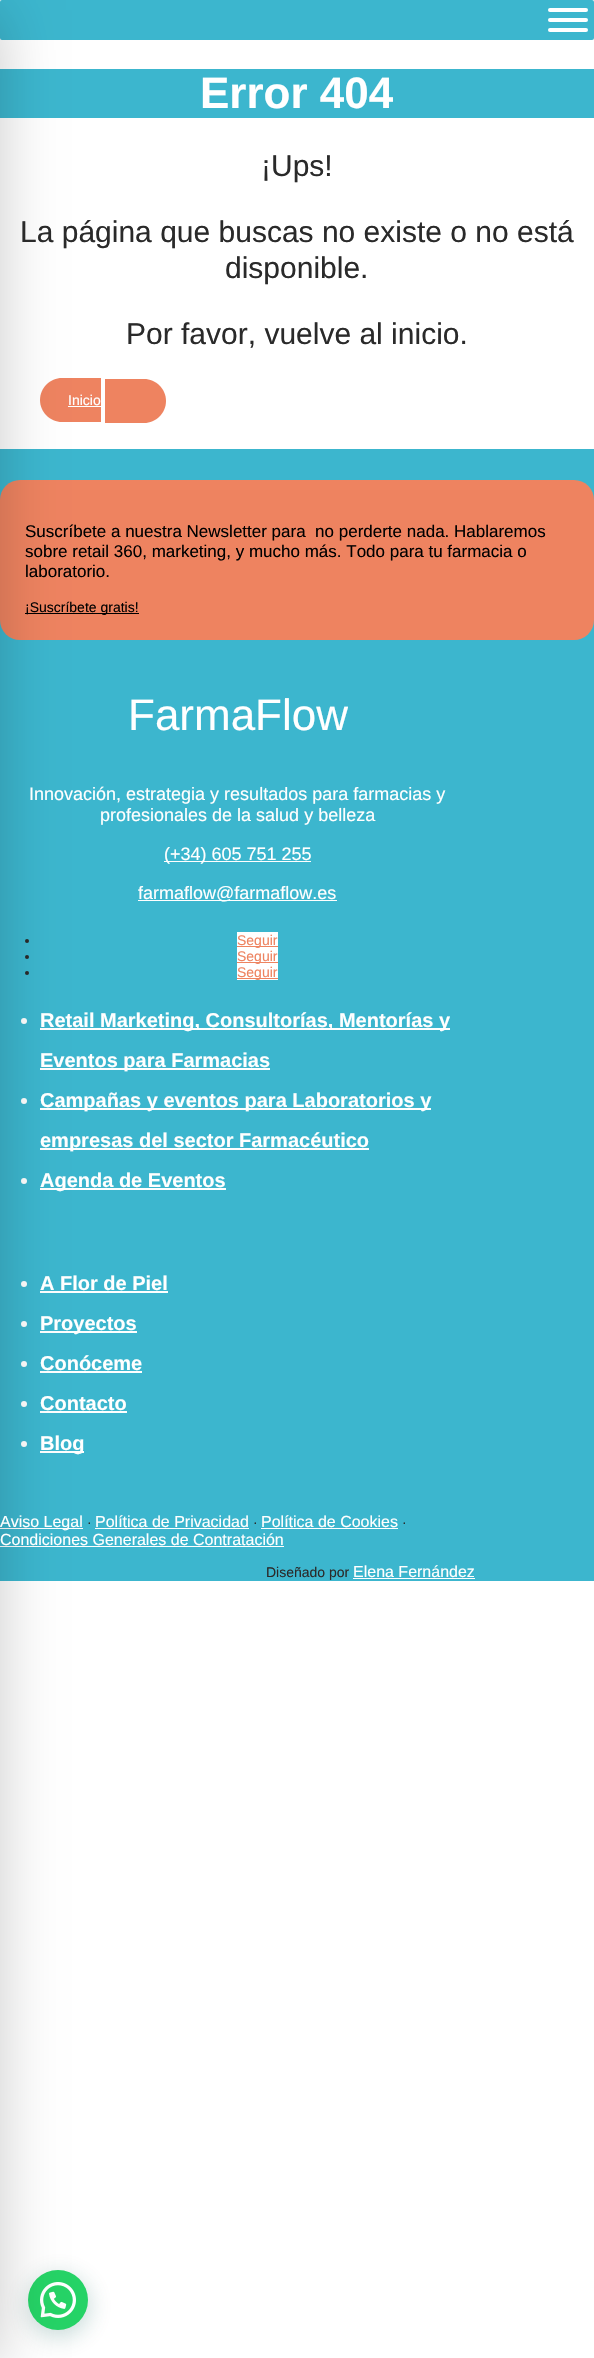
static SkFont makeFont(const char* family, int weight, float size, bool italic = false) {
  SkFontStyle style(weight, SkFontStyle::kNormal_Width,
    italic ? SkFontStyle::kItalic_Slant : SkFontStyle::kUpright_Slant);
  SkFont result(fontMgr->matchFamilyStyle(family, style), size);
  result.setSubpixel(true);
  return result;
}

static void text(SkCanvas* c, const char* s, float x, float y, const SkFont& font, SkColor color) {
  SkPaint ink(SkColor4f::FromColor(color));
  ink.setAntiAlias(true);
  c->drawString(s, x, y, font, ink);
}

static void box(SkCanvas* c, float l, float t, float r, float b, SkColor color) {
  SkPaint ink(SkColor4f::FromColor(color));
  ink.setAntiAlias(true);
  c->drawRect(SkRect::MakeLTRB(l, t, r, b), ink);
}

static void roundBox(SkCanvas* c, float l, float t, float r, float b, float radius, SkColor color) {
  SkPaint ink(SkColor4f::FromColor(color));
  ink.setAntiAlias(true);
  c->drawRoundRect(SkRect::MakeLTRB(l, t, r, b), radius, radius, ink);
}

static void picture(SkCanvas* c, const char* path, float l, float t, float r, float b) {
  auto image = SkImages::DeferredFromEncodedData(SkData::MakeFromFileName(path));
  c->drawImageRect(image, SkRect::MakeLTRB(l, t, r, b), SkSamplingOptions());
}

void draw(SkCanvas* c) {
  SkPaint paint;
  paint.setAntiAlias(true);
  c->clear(0xffffffff);
  roundBox(c, 0, 0, 594, 40, 2, 0xff3cb6ce);
  box(c, 0, 69, 594, 118, 0xff3cb6ce);
  paint.setColor(0xffee8360);
  c->drawPath(SkPathBuilder().moveTo(62, 378).lineTo(101, 378).lineTo(101, 422).lineTo(62, 422).cubicTo(50, 422, 40, 412, 40, 400).cubicTo(40, 388, 50, 378, 62, 378).close().detach(), paint);
  box(c, 68, 406, 101, 407, 0xffffffff);
  box(c, 0, 449, 594, 1581, 0xff3cb6ce);
  roundBox(c, 0, 480, 594, 640, 20, 0xffee8360);
  box(c, 25, 613, 139, 614, 0xff000000);
  paint.setColor(0xff2a2a2a);
  c->drawCircle(27, 941, 2, paint);
  c->drawCircle(27, 957, 2, paint);
  c->drawCircle(27, 973, 2, paint);
  paint.setColor(0xffffffff);
  c->drawCircle(24, 1021, 3, paint);
  box(c, 40, 1028, 450, 1030, 0xffffffff);
  box(c, 40, 1068, 270, 1070, 0xffffffff);
  c->drawCircle(24, 1101, 3, paint);
  box(c, 40, 1108, 431, 1110, 0xffffffff);
  box(c, 40, 1148, 369, 1150, 0xffffffff);
  c->drawCircle(24, 1181, 3, paint);
  box(c, 40, 1188, 226, 1190, 0xffffffff);
  c->drawCircle(24, 1284, 3, paint);
  box(c, 40, 1291, 168, 1293, 0xffffffff);
  c->drawCircle(24, 1324, 3, paint);
  box(c, 40, 1331, 137, 1333, 0xffffffff);
  c->drawCircle(24, 1364, 3, paint);
  box(c, 40, 1371, 142, 1373, 0xffffffff);
  c->drawCircle(24, 1404, 3, paint);
  box(c, 40, 1411, 127, 1413, 0xffffffff);
  c->drawCircle(24, 1444, 3, paint);
  box(c, 40, 1451, 84, 1453, 0xffffffff);
  box(c, 0, 1528, 83, 1529, 0xffffffff);
  box(c, 0, 1546, 284, 1547, 0xffffffff);
  paint.setColor(0x3d075e54);
  paint.setMaskFilter(SkMaskFilter::MakeBlur(kNormal_SkBlurStyle, 12));
  c->drawRoundRect(SkRect::MakeLTRB(29, 2276, 89, 2336), 30, 30, paint);
  paint.setMaskFilter(nullptr);
  paint.setColor(0xff25d366);
  c->drawCircle(58, 2300, 30, paint);
  picture(c, "img_01.png", 40, 2282, 76, 2318);
  paint.setColor(0x33000000);
  paint.setMaskFilter(SkMaskFilter::MakeBlur(kNormal_SkBlurStyle, 30));
  c->drawRect(SkRect::MakeLTRB(-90, 10, 0, 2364), paint);
  paint.setMaskFilter(nullptr);
  roundBox(c, 548, 8, 588, 12, 2, 0xffffffff);
  roundBox(c, 548, 18, 588, 22, 2, 0xffffffff);
  roundBox(c, 548, 28, 588, 32, 2, 0xffffffff);
  SkFont face1 = makeFont("Liberation Sans", 700, 44);
  text(c, "Error 404", 200, 108, face1, 0xffffffff);
  SkFont face2 = makeFont("Liberation Sans", 400, 30);
  text(c, "¡Ups!", 261, 176, face2, 0xff2a2a2a);
  text(c, "La página que buscas no existe o no está", 20, 242, face2, 0xff2a2a2a);
  text(c, "disponible.", 225, 278, face2, 0xff2a2a2a);
  text(c, "Por favor, vuelve al inicio.", 126, 344, face2, 0xff2a2a2a);
  SkFont face3 = makeFont("Liberation Sans", 400, 14);
  text(c, "Inicio", 68, 405, face3, 0xffffffff);
  paint.setColor(0xffee8360);
  c->drawPath(SkPathBuilder().moveTo(105, 379).lineTo(144, 379).cubicTo(156, 379, 166, 389, 166, 401).cubicTo(166, 413, 156, 423, 144, 423).lineTo(105, 423).close().detach(), paint);
  SkFont face4 = makeFont("Liberation Sans", 400, 17);
  text(c, "Suscríbete a nuestra Newsletter para  no perderte nada. Hablaremos", 25, 537, face4, 0xff000000);
  text(c, "sobre retail 360, marketing, y mucho más. Todo para tu farmacia o", 25, 557, face4, 0xff000000);
  text(c, "laboratorio.", 25, 577, face4, 0xff000000);
  text(c, "¡Suscríbete gratis!", 25, 612, face3, 0xff000000);
  SkFont face5 = makeFont("Liberation Sans", 400, 44);
  text(c, "FarmaFlow", 128, 730, face5, 0xffffffff);
  SkFont face6 = makeFont("Liberation Sans", 400, 18);
  text(c, "Innovación, estrategia y resultados para farmacias y", 29, 800, face6, 0xffffffff);
  text(c, "profesionales de la salud y belleza", 100, 821, face6, 0xffffffff);
  box(c, 164, 861, 311, 862, 0xffffffff);
  text(c, "(+34) 605 751 255", 164, 860, face6, 0xffffffff);
  box(c, 138, 900, 337, 901, 0xffffffff);
  text(c, "farmaflow@farmaflow.es", 138, 899, face6, 0xffffffff);
  box(c, 237, 932, 278, 980, 0xffffffff);
  box(c, 237, 946, 278, 947, 0xffee8360);
  text(c, "Seguir", 237, 945, face3, 0xffee8360);
  box(c, 237, 962, 278, 963, 0xffee8360);
  text(c, "Seguir", 237, 961, face3, 0xffee8360);
  box(c, 237, 978, 278, 979, 0xffee8360);
  text(c, "Seguir", 237, 977, face3, 0xffee8360);
  SkFont face7 = makeFont("Liberation Sans", 700, 20);
  text(c, "Retail Marketing, Consultorías, Mentorías y", 40, 1027, face7, 0xffffffff);
  text(c, "Eventos para Farmacias", 40, 1067, face7, 0xffffffff);
  text(c, "Campañas y eventos para Laboratorios y", 40, 1107, face7, 0xffffffff);
  text(c, "empresas del sector Farmacéutico", 40, 1147, face7, 0xffffffff);
  text(c, "Agenda de Eventos", 40, 1187, face7, 0xffffffff);
  text(c, "A Flor de Piel", 40, 1290, face7, 0xffffffff);
  text(c, "Proyectos", 40, 1330, face7, 0xffffffff);
  text(c, "Conóceme", 40, 1370, face7, 0xffffffff);
  text(c, "Contacto", 40, 1410, face7, 0xffffffff);
  text(c, "Blog", 40, 1450, face7, 0xffffffff);
  SkFont face8 = makeFont("Liberation Sans", 400, 16);
  text(c, "Aviso Legal", 0, 1527, face8, 0xffffffff);
  text(c, "·", 87, 1527, face3, 0xff2a2a2a);
  text(c, "Política de Privacidad", 95, 1527, face8, 0xffffffff);
  box(c, 95, 1528, 249, 1529, 0xffffffff);
  text(c, "·", 253, 1527, face3, 0xff2a2a2a);
  text(c, "Política de Cookies", 261, 1527, face8, 0xffffffff);
  box(c, 261, 1528, 398, 1529, 0xffffffff);
  text(c, "·", 402, 1527, face3, 0xff2a2a2a);
  text(c, "Condiciones Generales de Contratación", 0, 1545, face8, 0xffffffff);
  text(c, "Diseñado por", 266, 1577, face3, 0xff2a2a2a);
  text(c, "Elena Fernández", 353, 1577, face8, 0xffffffff);
  box(c, 353, 1578, 475, 1579, 0xffffffff);
}
